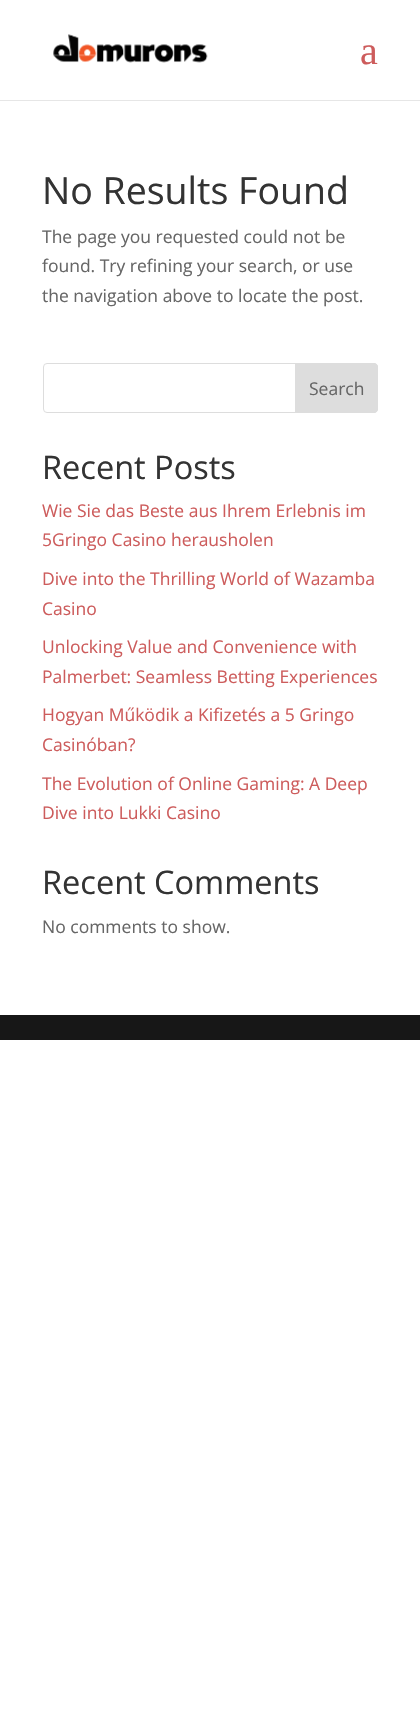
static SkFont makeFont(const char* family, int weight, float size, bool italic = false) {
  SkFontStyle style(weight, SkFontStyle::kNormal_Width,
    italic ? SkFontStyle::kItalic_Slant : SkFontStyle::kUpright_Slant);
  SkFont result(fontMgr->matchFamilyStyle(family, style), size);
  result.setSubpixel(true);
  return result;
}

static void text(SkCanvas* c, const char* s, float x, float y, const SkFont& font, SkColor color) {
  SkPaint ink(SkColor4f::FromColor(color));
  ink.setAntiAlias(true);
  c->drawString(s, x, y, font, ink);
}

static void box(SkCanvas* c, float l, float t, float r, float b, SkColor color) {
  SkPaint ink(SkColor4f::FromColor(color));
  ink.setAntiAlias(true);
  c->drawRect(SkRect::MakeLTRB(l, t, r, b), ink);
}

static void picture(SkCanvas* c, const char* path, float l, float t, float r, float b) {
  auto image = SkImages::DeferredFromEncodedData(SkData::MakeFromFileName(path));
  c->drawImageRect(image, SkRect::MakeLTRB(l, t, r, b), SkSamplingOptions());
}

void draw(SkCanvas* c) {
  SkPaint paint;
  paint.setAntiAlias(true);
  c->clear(0xffffffff);
  box(c, 0, 100, 420, 101, 0xffe6e6e6);
  picture(c, "img_01.png", 53, 34, 208, 63);
  SkFont face1 = makeFont("Liberation Serif", 400, 40);
  text(c, "a", 360, 64, face1, 0xffcd5c5c);
  SkFont face2 = makeFont("Open Sans", 400, 37.5f);
  text(c, "No Results Found", 42, 204, face2, 0xff333333);
  SkFont face3 = makeFont("Open Sans", 400, 17.5f);
  text(c, "The page you requested could not be", 42, 243, face3, 0xff666666);
  text(c, "found. Try refining your search, or use", 42, 272, face3, 0xff666666);
  text(c, "the navigation above to locate the post.", 42, 302, face3, 0xff666666);
  paint.setStyle(SkPaint::kStroke_Style);
  paint.setStrokeWidth(1);
  paint.setColor(0xffdddddd);
  c->drawRoundRect(SkRect::MakeLTRB(43.5f, 363.5f, 377.5f, 412.5f), 3.5f, 3.5f, paint);
  paint.setStyle(SkPaint::kFill_Style);
  c->drawPath(SkPathBuilder().moveTo(295.5f, 363.5f).lineTo(374, 363.5f).cubicTo(376, 363.5f, 377.5f, 365, 377.5f, 367).lineTo(377.5f, 409).cubicTo(377.5f, 411, 376, 412.5f, 374, 412.5f).lineTo(295.5f, 412.5f).close().detach(), paint);
  paint.setStyle(SkPaint::kStroke_Style);
  c->drawPath(SkPathBuilder().moveTo(295.5f, 363.5f).lineTo(374, 363.5f).cubicTo(376, 363.5f, 377.5f, 365, 377.5f, 367).lineTo(377.5f, 409).cubicTo(377.5f, 411, 376, 412.5f, 374, 412.5f).lineTo(295.5f, 412.5f).close().detach(), paint);
  text(c, "Search", 309, 395, face3, 0xff666666);
  SkFont face4 = makeFont("Open Sans", 400, 32.5f);
  text(c, "Recent Posts", 42, 479, face4, 0xff333333);
  text(c, "Wie Sie das Beste aus Ihrem Erlebnis im", 42, 517, face3, 0xffcd5c5c);
  text(c, "5Gringo Casino herausholen", 42, 546, face3, 0xffcd5c5c);
  text(c, "Dive into the Thrilling World of Wazamba", 42, 585, face3, 0xffcd5c5c);
  text(c, "Casino", 42, 615, face3, 0xffcd5c5c);
  text(c, "Unlocking Value and Convenience with", 42, 653, face3, 0xffcd5c5c);
  text(c, "Palmerbet: Seamless Betting Experiences", 42, 683, face3, 0xffcd5c5c);
  text(c, "Hogyan Működik a Kifizetés a 5 Gringo", 42, 721, face3, 0xffcd5c5c);
  text(c, "Casinóban?", 42, 751, face3, 0xffcd5c5c);
  text(c, "The Evolution of Online Gaming: A Deep", 42, 790, face3, 0xffcd5c5c);
  text(c, "Dive into Lukki Casino", 42, 819, face3, 0xffcd5c5c);
  text(c, "Recent Comments", 42, 894, face4, 0xff333333);
  text(c, "No comments to show.", 42, 933, face3, 0xff666666);
  box(c, 0, 1015, 420, 1040, 0xff171717);
}
